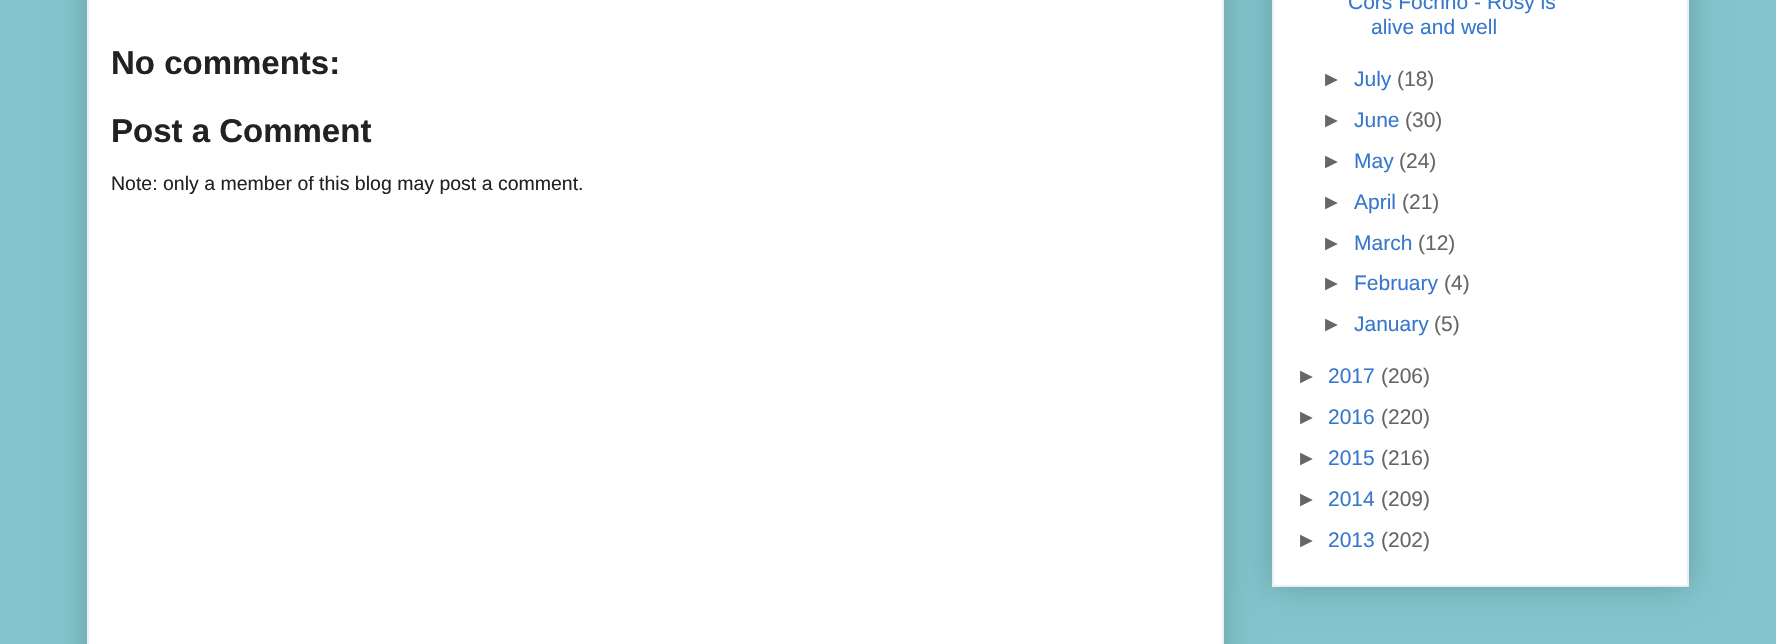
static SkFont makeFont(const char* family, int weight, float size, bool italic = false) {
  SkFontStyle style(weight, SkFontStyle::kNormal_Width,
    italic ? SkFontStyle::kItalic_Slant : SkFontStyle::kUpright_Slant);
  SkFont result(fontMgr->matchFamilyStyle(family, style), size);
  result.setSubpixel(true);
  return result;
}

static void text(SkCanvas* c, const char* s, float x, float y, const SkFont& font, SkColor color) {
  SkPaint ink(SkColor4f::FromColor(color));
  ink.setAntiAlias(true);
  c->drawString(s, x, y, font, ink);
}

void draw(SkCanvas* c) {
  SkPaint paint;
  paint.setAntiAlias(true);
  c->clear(0xff82c5cd);
  paint.setColor(0x33000000);
  paint.setMaskFilter(SkMaskFilter::MakeBlur(kNormal_SkBlurStyle, 15));
  c->drawRect(SkRect::MakeLTRB(87, -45, 1224, 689), paint);
  paint.setMaskFilter(nullptr);
  paint.setColor(0xffffffff);
  c->drawRect(SkRect::MakeLTRB(88, -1, 1223, 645), paint);
  paint.setStyle(SkPaint::kStroke_Style);
  paint.setStrokeWidth(2);
  paint.setColor(0xffeeeeee);
  c->drawRect(SkRect::MakeLTRB(88, -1, 1223, 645), paint);
  SkFont face1 = makeFont("Liberation Sans", 700, 33);
  text(c, "No comments:", 111, 74, face1, 0xff222222);
  text(c, "Post a Comment", 111, 142, face1, 0xff222222);
  SkFont face2 = makeFont("Liberation Sans", 400, 19.5f);
  text(c, "Note: only a member of this blog may post a comment.", 111, 190, face2, 0xff222222);
  paint.setStyle(SkPaint::kFill_Style);
  paint.setColor(0x33000000);
  paint.setMaskFilter(SkMaskFilter::MakeBlur(kNormal_SkBlurStyle, 15));
  c->drawRect(SkRect::MakeLTRB(1272, -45, 1689, 587), paint);
  paint.setMaskFilter(nullptr);
  paint.setColor(0xffffffff);
  c->drawRect(SkRect::MakeLTRB(1273, -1, 1688, 586), paint);
  paint.setStyle(SkPaint::kStroke_Style);
  paint.setColor(0xffeeeeee);
  c->drawRect(SkRect::MakeLTRB(1273, -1, 1688, 586), paint);
  SkFont face3 = makeFont("Liberation Sans", 400, 21);
  text(c, "Cors Fochno - Rosy is", 1348, 9, face3, 0xff3778cd);
  text(c, "alive and well", 1371, 34, face3, 0xff3778cd);
  text(c, "►", 1321, 86, face3, 0xff666666);
  text(c, "July", 1354, 86, face3, 0xff3778cd);
  text(c, "(18)", 1397, 86, face3, 0xff666666);
  text(c, "►", 1321, 127, face3, 0xff666666);
  text(c, "June", 1354, 127, face3, 0xff3778cd);
  text(c, "(30)", 1405, 127, face3, 0xff666666);
  text(c, "►", 1321, 168, face3, 0xff666666);
  text(c, "May", 1354, 168, face3, 0xff3778cd);
  text(c, "(24)", 1399, 168, face3, 0xff666666);
  text(c, "►", 1321, 209, face3, 0xff666666);
  text(c, "April", 1354, 209, face3, 0xff3778cd);
  text(c, "(21)", 1402, 209, face3, 0xff666666);
  text(c, "►", 1321, 250, face3, 0xff666666);
  text(c, "March", 1354, 250, face3, 0xff3778cd);
  text(c, "(12)", 1418, 250, face3, 0xff666666);
  text(c, "►", 1321, 290, face3, 0xff666666);
  text(c, "February", 1354, 290, face3, 0xff3778cd);
  text(c, "(4)", 1444, 290, face3, 0xff666666);
  text(c, "►", 1321, 331, face3, 0xff666666);
  text(c, "January", 1354, 331, face3, 0xff3778cd);
  text(c, "(5)", 1434, 331, face3, 0xff666666);
  text(c, "►", 1296, 383, face3, 0xff666666);
  text(c, "2017", 1328, 383, face3, 0xff3778cd);
  text(c, "(206)", 1381, 383, face3, 0xff666666);
  text(c, "►", 1296, 424, face3, 0xff666666);
  text(c, "2016", 1328, 424, face3, 0xff3778cd);
  text(c, "(220)", 1381, 424, face3, 0xff666666);
  text(c, "►", 1296, 465, face3, 0xff666666);
  text(c, "2015", 1328, 465, face3, 0xff3778cd);
  text(c, "(216)", 1381, 465, face3, 0xff666666);
  text(c, "►", 1296, 506, face3, 0xff666666);
  text(c, "2014", 1328, 506, face3, 0xff3778cd);
  text(c, "(209)", 1381, 506, face3, 0xff666666);
  text(c, "►", 1296, 547, face3, 0xff666666);
  text(c, "2013", 1328, 547, face3, 0xff3778cd);
  text(c, "(202)", 1381, 547, face3, 0xff666666);
}
